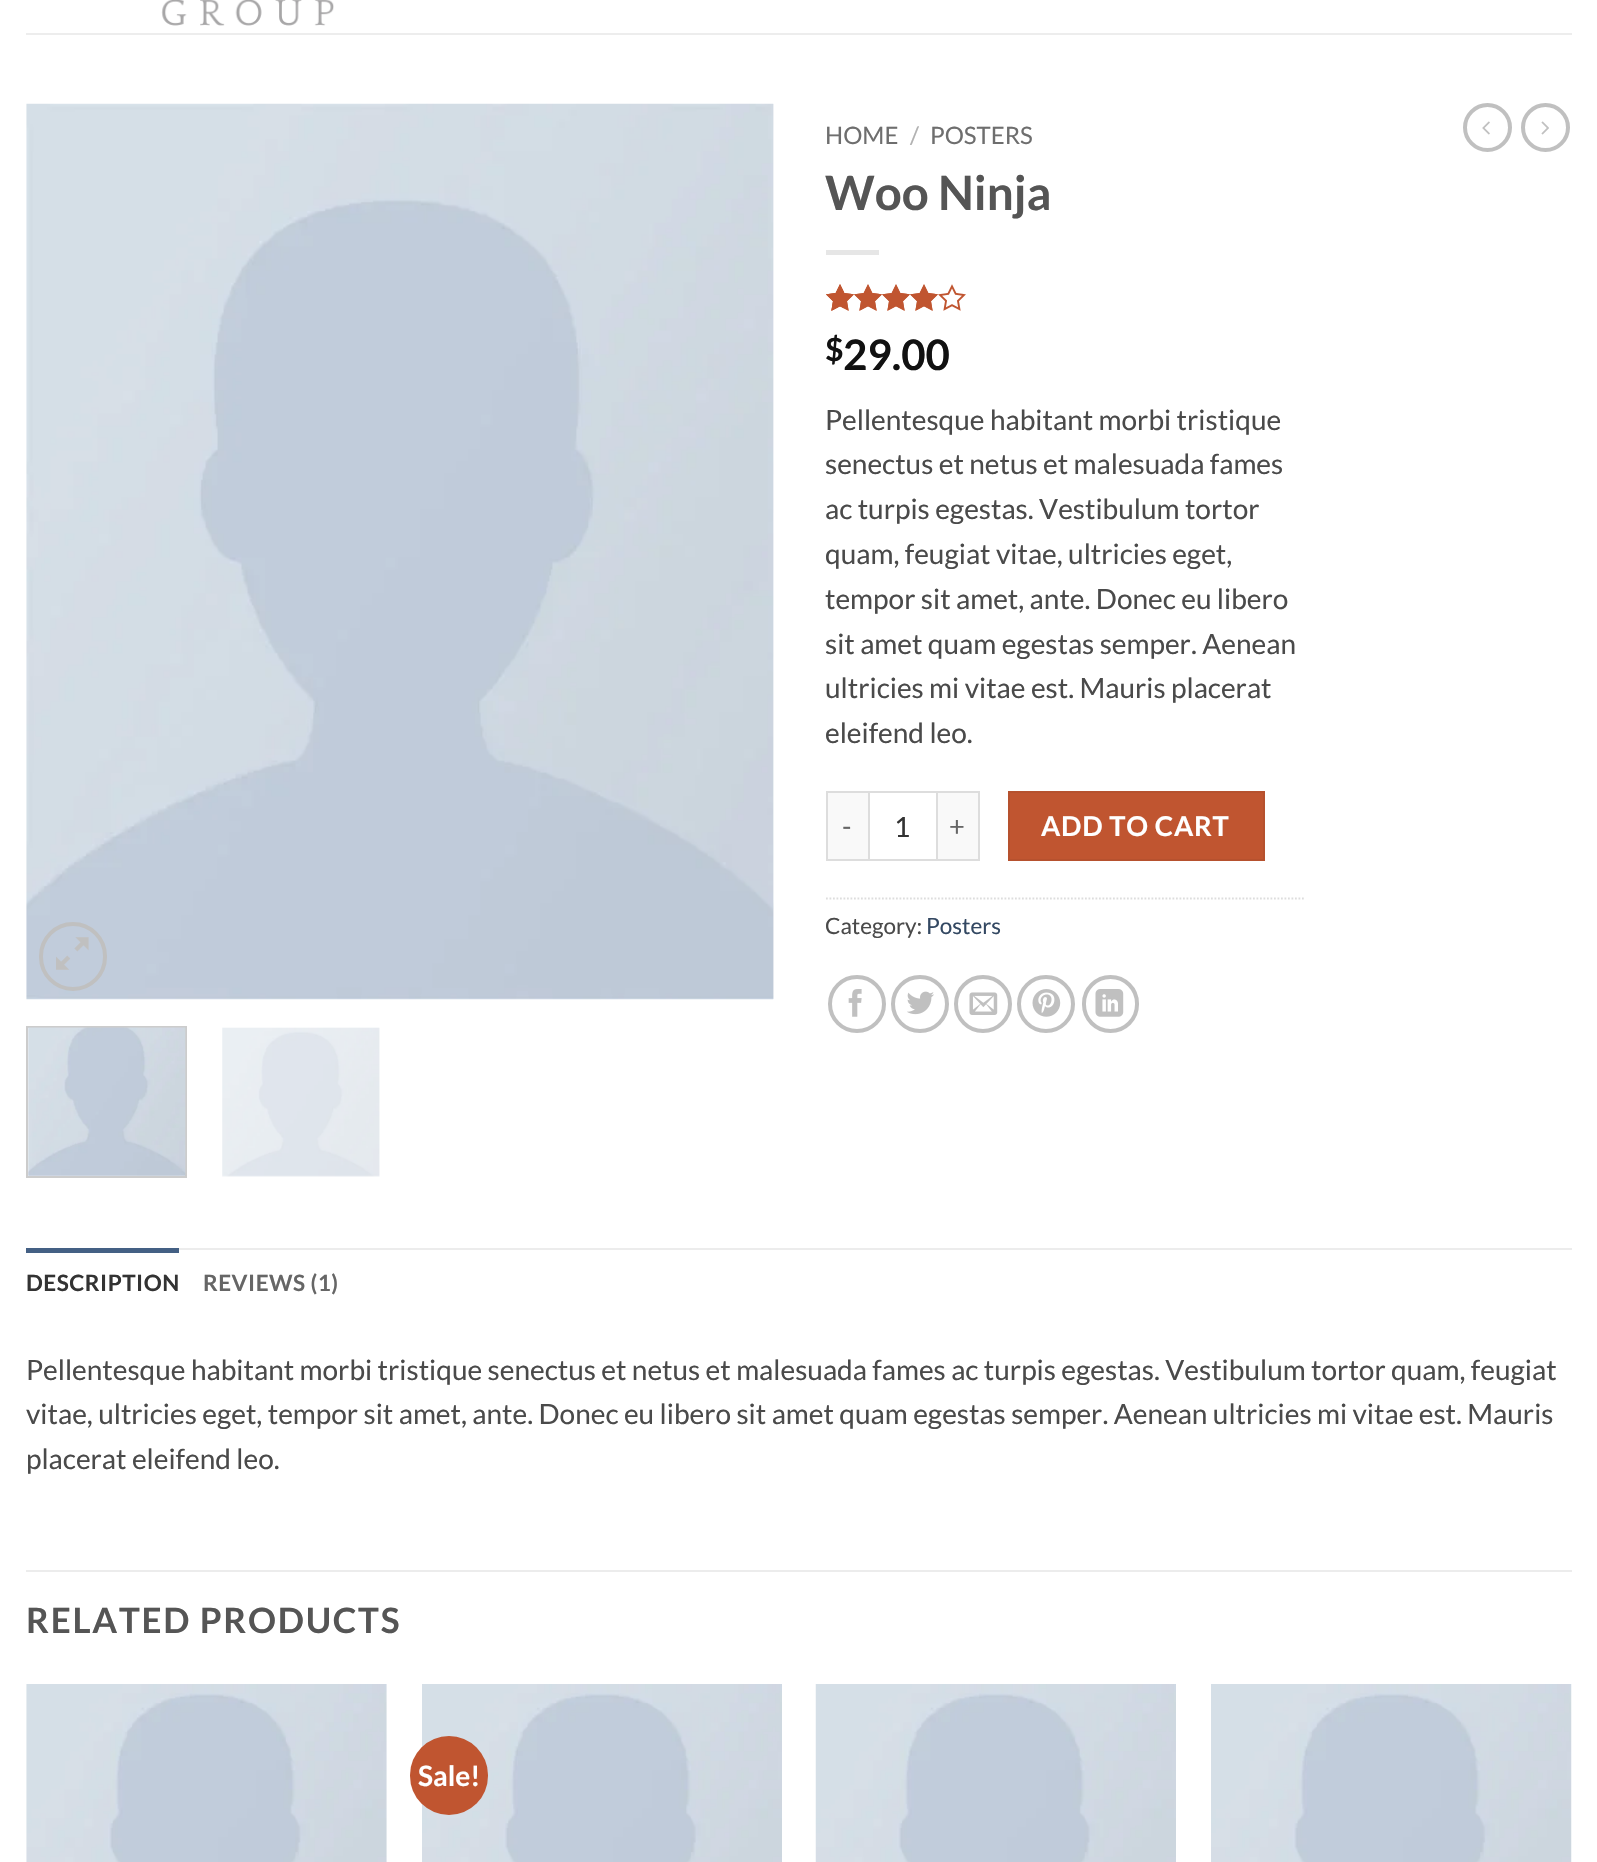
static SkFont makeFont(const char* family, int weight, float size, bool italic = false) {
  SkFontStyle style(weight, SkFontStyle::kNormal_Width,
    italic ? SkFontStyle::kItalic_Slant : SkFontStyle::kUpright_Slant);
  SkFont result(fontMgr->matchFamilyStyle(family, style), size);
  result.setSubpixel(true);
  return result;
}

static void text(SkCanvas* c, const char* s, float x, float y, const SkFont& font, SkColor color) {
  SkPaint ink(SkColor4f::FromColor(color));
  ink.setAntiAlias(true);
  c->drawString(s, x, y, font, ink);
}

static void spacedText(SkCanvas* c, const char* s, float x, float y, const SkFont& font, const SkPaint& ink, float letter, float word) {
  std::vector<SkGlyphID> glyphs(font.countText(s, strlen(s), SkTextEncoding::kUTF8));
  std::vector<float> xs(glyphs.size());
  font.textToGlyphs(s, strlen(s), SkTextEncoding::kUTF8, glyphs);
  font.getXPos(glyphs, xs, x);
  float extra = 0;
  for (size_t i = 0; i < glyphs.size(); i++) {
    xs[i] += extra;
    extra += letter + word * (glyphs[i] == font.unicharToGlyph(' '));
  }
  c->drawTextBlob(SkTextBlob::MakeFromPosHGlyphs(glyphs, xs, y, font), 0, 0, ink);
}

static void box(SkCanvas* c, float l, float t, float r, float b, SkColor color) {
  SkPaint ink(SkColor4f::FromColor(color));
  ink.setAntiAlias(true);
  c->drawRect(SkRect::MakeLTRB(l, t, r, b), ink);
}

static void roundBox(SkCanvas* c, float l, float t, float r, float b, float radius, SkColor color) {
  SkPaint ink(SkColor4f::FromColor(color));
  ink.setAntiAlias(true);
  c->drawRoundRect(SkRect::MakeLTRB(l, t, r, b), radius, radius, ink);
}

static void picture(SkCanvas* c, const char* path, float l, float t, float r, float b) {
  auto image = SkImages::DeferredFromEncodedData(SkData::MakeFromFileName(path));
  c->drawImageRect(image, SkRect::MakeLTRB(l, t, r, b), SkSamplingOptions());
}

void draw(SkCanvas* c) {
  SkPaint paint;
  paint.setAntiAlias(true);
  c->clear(0xffffffff);
  picture(c, "img_01.png", 161, 0, 334, 26);
  box(c, 26, 33, 1572, 35, 0xffededed);
  picture(c, "img_02.png", 26, 103, 774, 1000);
  picture(c, "img_03.png", 773, 104, 774, 999);
  paint.setStyle(SkPaint::kStroke_Style);
  paint.setStrokeWidth(4);
  paint.setColor(0xffc0c0c0);
  c->drawRoundRect(SkRect::MakeLTRB(41, 924, 105, 989), 32, 32, paint);
  picture(c, "img_04.png", 56, 937, 89, 970);
  paint.setStrokeWidth(2);
  paint.setColor(0xffcccccc);
  c->drawRect(SkRect::MakeLTRB(27, 1027, 186, 1177), paint);
  picture(c, "img_05.png", 28, 1027, 186, 1176);
  picture(c, "img_06.png", 222, 1027, 380, 1177);
  SkFont face1 = makeFont("Lato", 400, 24);
  text(c, "HOME", 825, 144, face1, 0xff6e6e6e);
  text(c, "/", 910, 144, face1, 0xffb2b2b2);
  text(c, "POSTERS", 930, 144, face1, 0xff6e6e6e);
  SkFont face2 = makeFont("Lato", 700, 47.5f);
  text(c, "Woo Ninja", 825, 210, face2, 0xff555555);
  box(c, 826, 250, 879, 255, 0xffe6e6e6);
  picture(c, "img_07.png", 826, 284, 966, 311);
  picture(c, "img_08.png", 826, 284, 938, 311);
  picture(c, "img_09.png", 826, 284, 844, 311);
  SkFont face3 = makeFont("Lato", 700, 32);
  text(c, "$", 825, 361, face3, 0xff111111);
  SkFont face4 = makeFont("Lato", 700, 42);
  text(c, "29.00", 843, 370, face4, 0xff111111);
  SkFont face5 = makeFont("Lato", 400, 28);
  text(c, "Pellentesque habitant morbi tristique", 825, 430, face5, 0xff4a4a4a);
  text(c, "senectus et netus et malesuada fames", 825, 474, face5, 0xff4a4a4a);
  text(c, "ac turpis egestas. Vestibulum tortor", 825, 519, face5, 0xff4a4a4a);
  text(c, "quam, feugiat vitae, ultricies eget,", 825, 564, face5, 0xff4a4a4a);
  text(c, "tempor sit amet, ante. Donec eu libero", 825, 609, face5, 0xff4a4a4a);
  text(c, "sit amet quam egestas semper. Aenean", 825, 654, face5, 0xff4a4a4a);
  text(c, "ultricies mi vitae est. Mauris placerat", 825, 698, face5, 0xff4a4a4a);
  text(c, "eleifend leo.", 825, 743, face5, 0xff4a4a4a);
  box(c, 828, 793, 868, 859, 0xfff9f9f9);
  box(c, 826, 791, 868, 793, 0xffdddddd);
  box(c, 826, 859, 868, 861, 0xffdddddd);
  box(c, 826, 791, 828, 861, 0xffdddddd);
  SkFont face6 = makeFont("Lato", 400, 27.25f);
  paint.setStyle(SkPaint::kFill_Style);
  paint.setColor(0xff666666);
  spacedText(c, "-", 842, 836, face6, paint, 0.75f, 0);
  paint.setStyle(SkPaint::kStroke_Style);
  paint.setColor(0xffdddddd);
  c->drawRect(SkRect::MakeLTRB(869, 792, 937, 860), paint);
  text(c, "1", 894, 837, face5, 0xff333333);
  box(c, 938, 793, 978, 859, 0xfff9f9f9);
  box(c, 938, 791, 980, 793, 0xffdddddd);
  box(c, 978, 791, 980, 861, 0xffdddddd);
  box(c, 938, 859, 980, 861, 0xffdddddd);
  paint.setStyle(SkPaint::kFill_Style);
  paint.setColor(0xff666666);
  spacedText(c, "+", 949, 836, face6, paint, 0.75f, 0);
  paint.setColor(0xffc05530);
  c->drawRect(SkRect::MakeLTRB(1009, 792, 1264, 860), paint);
  paint.setStyle(SkPaint::kStroke_Style);
  paint.setColor(0xffb6512e);
  c->drawRect(SkRect::MakeLTRB(1009, 792, 1264, 860), paint);
  SkFont face7 = makeFont("Lato", 700, 27.25f);
  paint.setStyle(SkPaint::kFill_Style);
  paint.setColor(0xffffffff);
  spacedText(c, "ADD TO CART", 1041, 836, face7, paint, 0.75f, 0);
  paint.setStyle(SkPaint::kStroke_Style);
  paint.setStrokeWidth(1.8f);
  paint.setColor(0xffdddddd);
  paint.setPathEffect(SkDashPathEffect::Make({{1.75f, 1.75f}}, 0));
  c->drawPath(SkPathBuilder().moveTo(826, 898.5f).lineTo(1305.5f, 898.5f).detach(), paint);
  paint.setPathEffect(nullptr);
  SkFont face8 = makeFont("Lato", 400, 22.5f);
  text(c, "Category:", 825, 934, face8, 0xff4a4a4a);
  text(c, "Posters", 926, 934, face8, 0xff334862);
  paint.setStrokeWidth(4);
  paint.setColor(0xffc0c0c0);
  c->drawCircle(857, 1004, 27, paint);
  picture(c, "img_10.png", 848, 989, 862, 1017);
  c->drawCircle(920, 1004, 27, paint);
  picture(c, "img_11.png", 907, 991, 934, 1015);
  c->drawCircle(983, 1004, 27, paint);
  picture(c, "img_12.png", 969, 992, 998, 1015);
  c->drawCircle(1046, 1004, 27, paint);
  picture(c, "img_13.png", 1032, 989, 1061, 1017);
  c->drawRoundRect(SkRect::MakeLTRB(1084, 977, 1137, 1031), 26.5f, 26.5f, paint);
  picture(c, "img_14.png", 1095, 989, 1124, 1017);
  c->drawCircle(1487.5f, 127.5f, 22.5f, paint);
  picture(c, "img_15.png", 1482, 121, 1490, 135);
  c->drawCircle(1545.5f, 127.5f, 22.5f, paint);
  picture(c, "img_16.png", 1541, 121, 1549, 135);
  box(c, 179, 1248, 1572, 1250, 0xffececec);
  box(c, 26, 1248, 179, 1253, 0xff446084);
  SkFont face9 = makeFont("Lato", 700, 22.5f);
  paint.setStyle(SkPaint::kFill_Style);
  paint.setColor(0xff333333);
  spacedText(c, "DESCRIPTION", 26, 1291, face9, paint, 0.5f, 0);
  paint.setColor(0xff666666);
  spacedText(c, "REVIEWS (1)", 203, 1291, face9, paint, 0.5f, 0);
  text(c, "Pellentesque habitant morbi tristique senectus et netus et malesuada fames ac turpis egestas. Vestibulum tortor quam, feugiat", 26, 1380, face5, 0xff4a4a4a);
  text(c, "vitae, ultricies eget, tempor sit amet, ante. Donec eu libero sit amet quam egestas semper. Aenean ultricies mi vitae est. Mauris", 26, 1424, face5, 0xff4a4a4a);
  text(c, "placerat eleifend leo.", 26, 1469, face5, 0xff4a4a4a);
  box(c, 26, 1570, 1572, 1572, 0xffececec);
  SkFont face10 = makeFont("Lato", 700, 35);
  paint.setColor(0xff555555);
  spacedText(c, "RELATED PRODUCTS", 26, 1633, face10, paint, 1.75f, 0);
  picture(c, "img_17.png", 26, 1684, 387, 1862);
  picture(c, "img_18.png", 422, 1684, 782, 1862);
  roundBox(c, 410, 1736, 488, 1815, 39, 0xffc05530);
  SkFont face11 = makeFont("Lato", 700, 28);
  text(c, "Sale!", 418, 1786, face11, 0xffffffff);
  picture(c, "img_19.png", 815, 1684, 1176, 1862);
  picture(c, "img_20.png", 1211, 1684, 1572, 1862);
}
